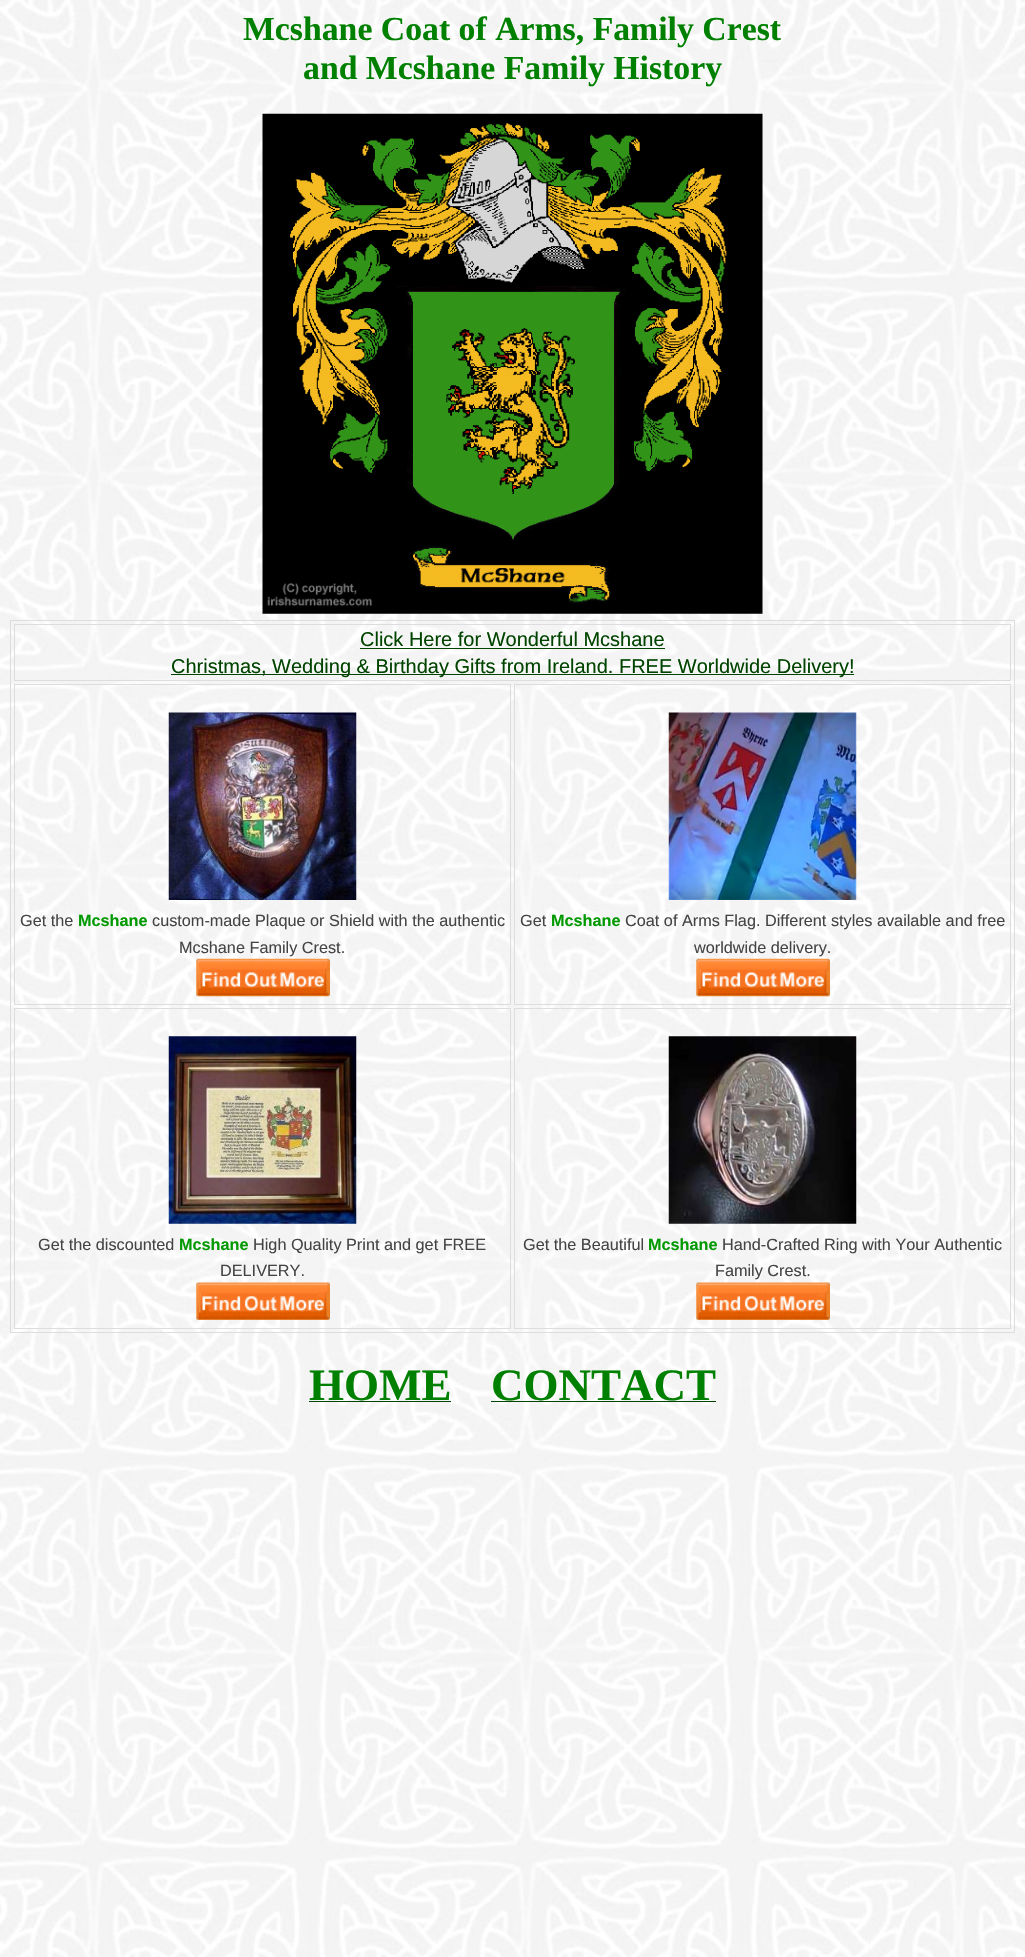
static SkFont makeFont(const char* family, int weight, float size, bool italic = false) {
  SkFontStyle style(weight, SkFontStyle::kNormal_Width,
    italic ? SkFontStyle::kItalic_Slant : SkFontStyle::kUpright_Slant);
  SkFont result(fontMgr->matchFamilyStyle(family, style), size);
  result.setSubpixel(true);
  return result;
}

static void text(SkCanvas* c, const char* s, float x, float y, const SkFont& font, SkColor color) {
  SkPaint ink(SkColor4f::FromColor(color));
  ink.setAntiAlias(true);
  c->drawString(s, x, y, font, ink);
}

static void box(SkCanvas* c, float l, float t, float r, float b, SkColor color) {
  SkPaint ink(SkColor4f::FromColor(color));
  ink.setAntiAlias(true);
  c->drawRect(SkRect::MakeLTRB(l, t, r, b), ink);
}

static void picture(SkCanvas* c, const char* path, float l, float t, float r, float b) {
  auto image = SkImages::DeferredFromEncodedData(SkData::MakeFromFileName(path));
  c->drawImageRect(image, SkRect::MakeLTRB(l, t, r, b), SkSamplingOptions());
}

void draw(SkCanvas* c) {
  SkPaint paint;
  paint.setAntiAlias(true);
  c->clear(0xffffffff);
  picture(c, "img_01.png", 0, 0, 1025, 1957);
  SkFont face1 = makeFont("Liberation Serif", 700, 33.75f);
  text(c, "Mcshane Coat of Arms, Family Crest", 243, 40, face1, 0xff008000);
  text(c, "and Mcshane Family History", 303, 79, face1, 0xff008000);
  picture(c, "img_02.png", 262, 113, 763, 614);
  paint.setStyle(SkPaint::kStroke_Style);
  paint.setStrokeWidth(1);
  paint.setColor(0xffdddddd);
  c->drawRect(SkRect::MakeLTRB(10.5f, 620.5f, 1014.5f, 1332.5f), paint);
  c->drawRect(SkRect::MakeLTRB(14.5f, 624.5f, 1010.5f, 680.5f), paint);
  SkFont face2 = makeFont("Liberation Sans", 400, 20);
  text(c, "Click Here for Wonderful Mcshane", 360, 646, face2, 0xff004400);
  box(c, 360, 648, 665, 649, 0xff004400);
  box(c, 171, 674, 854, 675, 0xff004400);
  text(c, "Christmas, Wedding & Birthday Gifts from Ireland. FREE Worldwide Delivery!", 171, 673, face2, 0xff004400);
  c->drawRect(SkRect::MakeLTRB(14.5f, 684.5f, 510.5f, 1004.5f), paint);
  picture(c, "img_03.png", 168, 712, 357, 900);
  SkFont face3 = makeFont("Liberation Sans", 400, 16.25f);
  text(c, "Get the", 20, 926, face3, 0xff444444);
  SkFont face4 = makeFont("Liberation Sans", 700, 16.25f);
  text(c, "Mcshane", 78, 926, face4, 0xff009900);
  text(c, "custom-made Plaque or Shield with the authentic", 152, 926, face3, 0xff444444);
  text(c, "Mcshane Family Crest.", 179, 953, face3, 0xff444444);
  picture(c, "img_04.png", 196, 958, 330, 997);
  c->drawRect(SkRect::MakeLTRB(514.5f, 684.5f, 1010.5f, 1004.5f), paint);
  picture(c, "img_05.png", 668, 712, 857, 900);
  text(c, "Get", 520, 926, face3, 0xff444444);
  text(c, "Mcshane", 551, 926, face4, 0xff009900);
  text(c, "Coat of Arms Flag. Different styles available and free", 625, 926, face3, 0xff444444);
  text(c, "worldwide delivery.", 694, 953, face3, 0xff444444);
  picture(c, "img_06.png", 696, 958, 830, 997);
  c->drawRect(SkRect::MakeLTRB(14.5f, 1008.5f, 510.5f, 1328.5f), paint);
  picture(c, "img_07.png", 168, 1036, 357, 1224);
  text(c, "Get the discounted", 38, 1250, face3, 0xff444444);
  text(c, "Mcshane", 179, 1250, face4, 0xff009900);
  text(c, "High Quality Print and get FREE", 253, 1250, face3, 0xff444444);
  text(c, "DELIVERY.", 220, 1276, face3, 0xff444444);
  picture(c, "img_08.png", 196, 1282, 330, 1320);
  c->drawRect(SkRect::MakeLTRB(514.5f, 1008.5f, 1010.5f, 1328.5f), paint);
  picture(c, "img_09.png", 668, 1036, 857, 1224);
  text(c, "Get the Beautiful", 523, 1250, face3, 0xff444444);
  text(c, "Mcshane", 648, 1250, face4, 0xff009900);
  text(c, "Hand-Crafted Ring with Your Authentic", 722, 1250, face3, 0xff444444);
  text(c, "Family Crest.", 715, 1276, face3, 0xff444444);
  picture(c, "img_10.png", 696, 1282, 830, 1320);
  SkFont face5 = makeFont("Liberation Serif", 700, 45);
  text(c, "HOME", 309, 1400, face5, 0xff008000);
  box(c, 309, 1401, 451, 1402, 0xff004400);
  text(c, "CONTACT", 491, 1400, face5, 0xff008000);
  box(c, 491, 1401, 716, 1402, 0xff004400);
}
